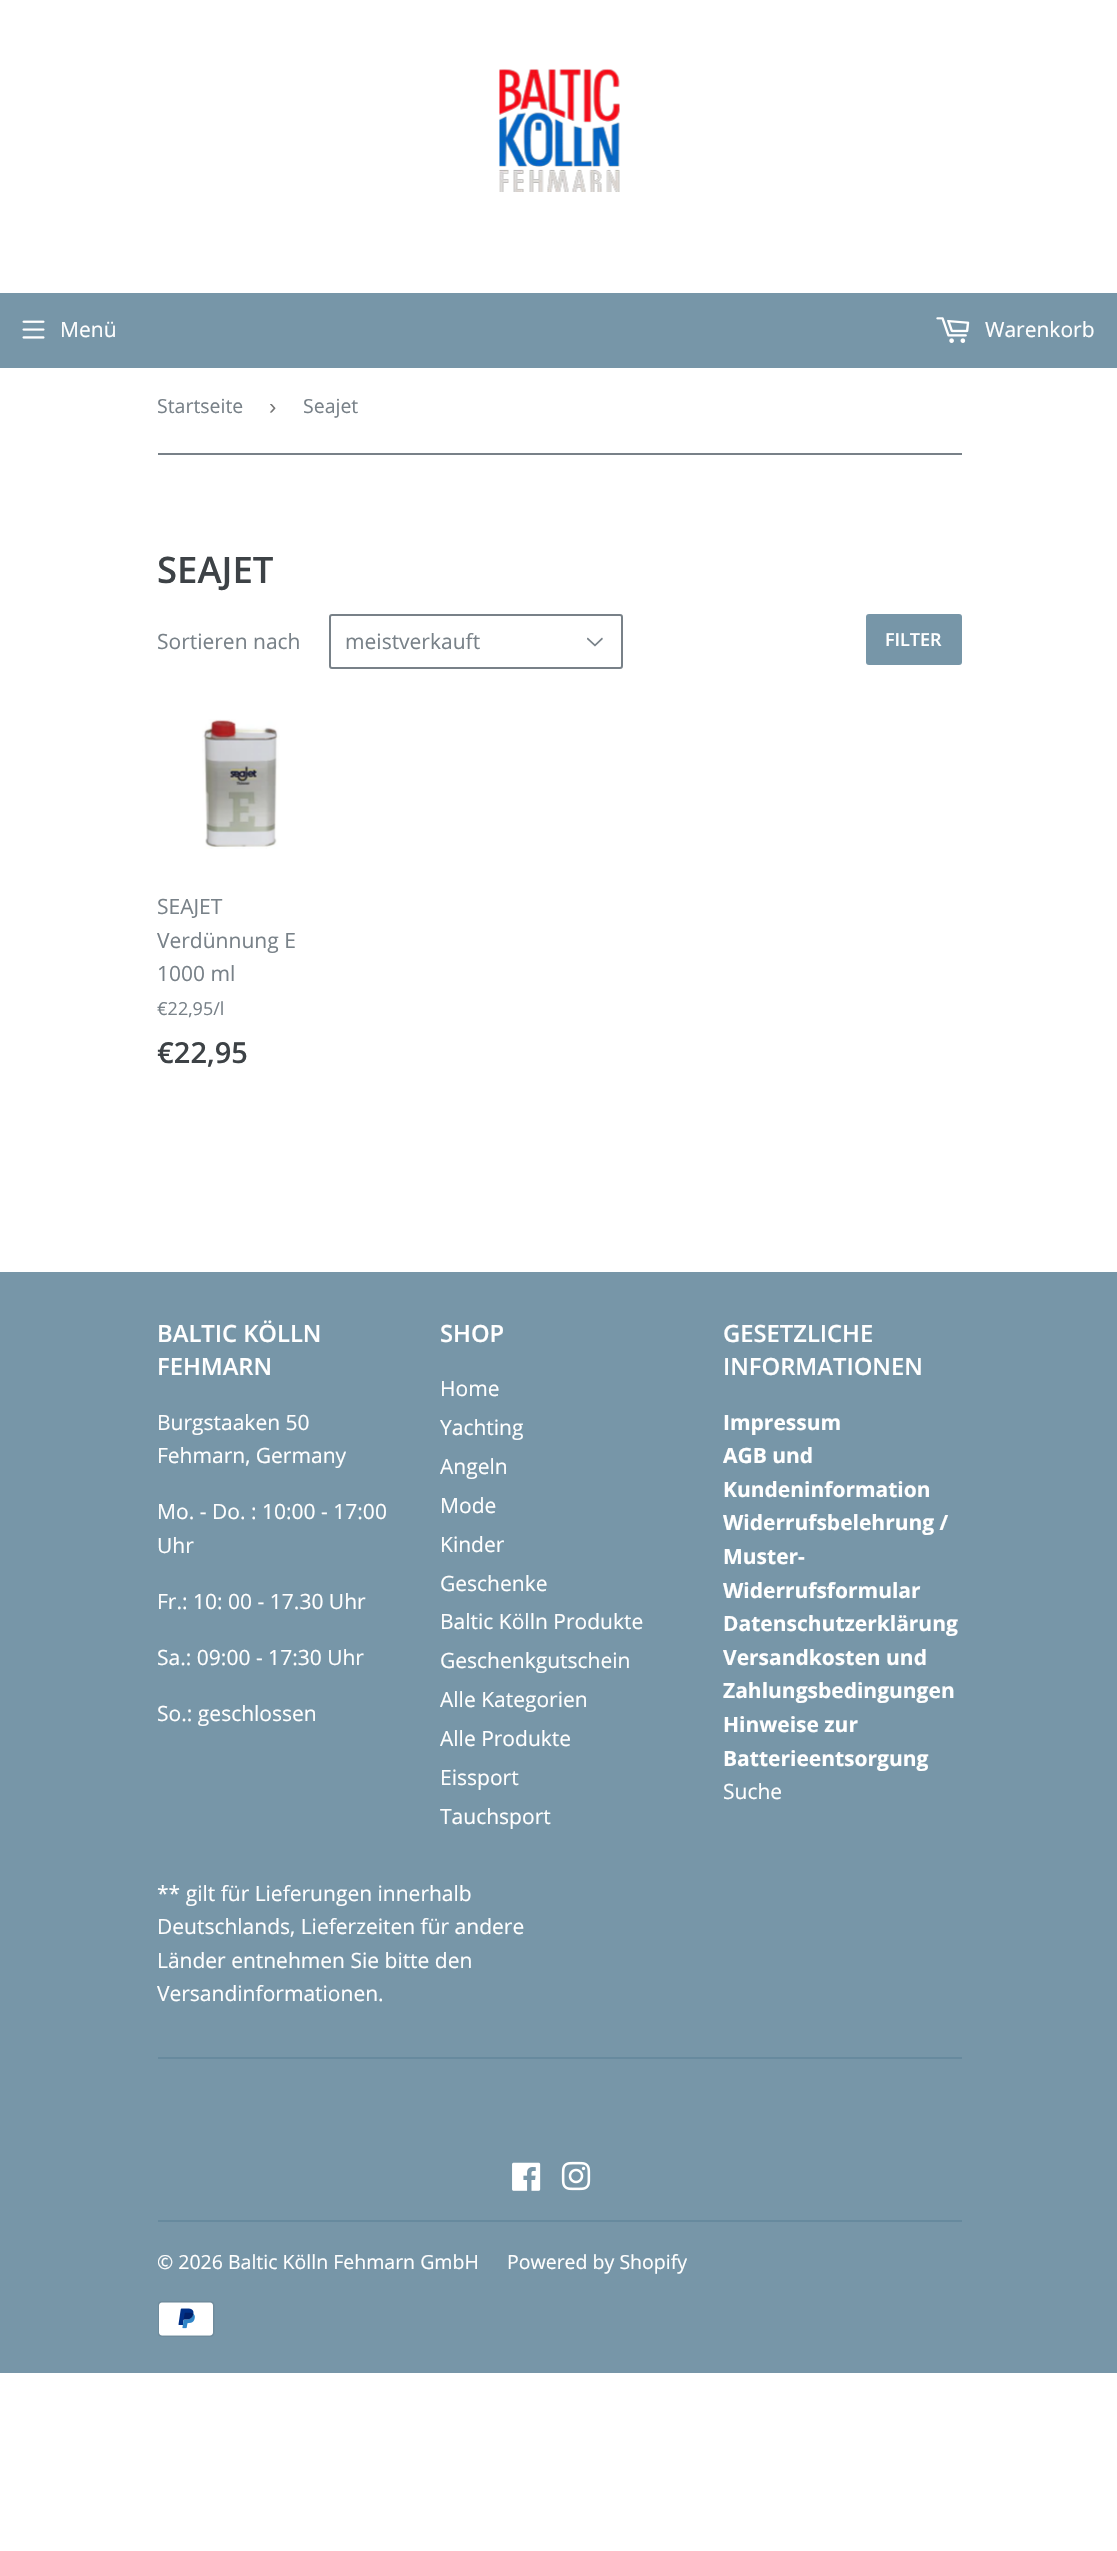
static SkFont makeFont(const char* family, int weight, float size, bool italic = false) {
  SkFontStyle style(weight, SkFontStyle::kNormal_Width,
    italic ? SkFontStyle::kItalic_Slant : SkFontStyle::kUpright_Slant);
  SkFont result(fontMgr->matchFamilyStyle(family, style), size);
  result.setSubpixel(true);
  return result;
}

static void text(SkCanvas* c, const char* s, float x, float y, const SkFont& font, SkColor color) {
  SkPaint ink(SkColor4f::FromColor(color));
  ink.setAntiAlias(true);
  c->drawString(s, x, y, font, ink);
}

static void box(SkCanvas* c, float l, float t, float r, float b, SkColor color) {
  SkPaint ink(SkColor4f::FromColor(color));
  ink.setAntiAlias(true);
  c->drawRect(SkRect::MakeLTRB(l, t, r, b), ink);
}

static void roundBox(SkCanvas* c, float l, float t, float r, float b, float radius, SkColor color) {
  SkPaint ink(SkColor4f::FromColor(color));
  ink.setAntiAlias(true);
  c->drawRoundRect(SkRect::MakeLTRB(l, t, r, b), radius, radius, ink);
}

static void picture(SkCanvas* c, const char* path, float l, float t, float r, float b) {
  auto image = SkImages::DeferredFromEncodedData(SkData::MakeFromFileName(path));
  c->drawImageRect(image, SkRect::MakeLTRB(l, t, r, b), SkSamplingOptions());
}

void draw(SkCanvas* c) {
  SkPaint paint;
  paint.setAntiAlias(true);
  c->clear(0xffffffff);
  picture(c, "img_01.png", 499, 68, 620, 192);
  box(c, 0, 293, 1117, 368, 0xff7796a8);
  picture(c, "img_02.png", 22, 320, 45, 339);
  SkFont face1 = makeFont("Open Sans", 400, 21);
  text(c, "Menü", 60, 337, face1, 0xffffffff);
  picture(c, "img_03.png", 936, 317, 970, 343);
  text(c, "Warenkorb", 985, 337, face1, 0xffffffff);
  box(c, 158, 453, 962, 455, 0xff788188);
  SkFont face2 = makeFont("Open Sans", 400, 19.5f);
  text(c, "Startseite", 157, 413, face2, 0xff788188);
  SkFont face3 = makeFont("Liberation Sans", 400, 22);
  text(c, "›", 269, 414, face3, 0xff767676);
  text(c, "Seajet", 303, 413, face2, 0xff788188);
  SkFont face4 = makeFont("Open Sans", 600, 36.5f);
  text(c, "SEAJET", 157, 583, face4, 0xff3d4246);
  text(c, "Sortieren nach", 157, 649, face1, 0xff788188);
  picture(c, "img_04.png", 587, 637, 603, 647);
  paint.setStyle(SkPaint::kStroke_Style);
  paint.setStrokeWidth(2);
  paint.setColor(0xff788188);
  c->drawRoundRect(SkRect::MakeLTRB(330, 615, 622, 668), 2, 2, paint);
  text(c, "meistverkauft", 345, 649, face1, 0xff788188);
  roundBox(c, 866, 614, 962, 665, 3, 0xff7796a8);
  SkFont face5 = makeFont("Open Sans", 600, 18);
  text(c, "FILTER", 885, 646, face5, 0xffffffff);
  picture(c, "img_05.png", 202, 719, 280, 849);
  text(c, "SEAJET", 157, 914, face1, 0xff788188);
  text(c, "Verdünnung E", 157, 948, face1, 0xff788188);
  text(c, "1000 ml", 157, 981, face1, 0xff788188);
  SkFont face6 = makeFont("Open Sans", 400, 18);
  text(c, "€22,95/l", 157, 1015, face6, 0xff788188);
  SkFont face7 = makeFont("Open Sans", 600, 29);
  text(c, "€22,95", 157, 1063, face7, 0xff3d4246);
  box(c, 0, 1272, 1117, 2373, 0xff7796a8);
  SkFont face8 = makeFont("Open Sans", 600, 23.75f);
  text(c, "BALTIC KÖLLN", 157, 1342, face8, 0xffffffff);
  text(c, "FEHMARN", 157, 1375, face8, 0xffffffff);
  text(c, "Burgstaaken 50", 157, 1430, face1, 0xffffffff);
  text(c, "Fehmarn, Germany", 157, 1463, face1, 0xffffffff);
  text(c, "Mo. - Do. : 10:00 - 17:00", 157, 1519, face1, 0xffffffff);
  text(c, "Uhr", 157, 1553, face1, 0xffffffff);
  text(c, "Fr.: 10: 00 - 17.30 Uhr", 157, 1609, face1, 0xffffffff);
  text(c, "Sa.: 09:00 - 17:30 Uhr", 157, 1665, face1, 0xffffffff);
  text(c, "So.: geschlossen", 157, 1721, face1, 0xffffffff);
  text(c, "SHOP", 440, 1342, face8, 0xffffffff);
  text(c, "Home", 440, 1396, face1, 0xffffffff);
  text(c, "Yachting", 440, 1435, face1, 0xffffffff);
  text(c, "Angeln", 440, 1474, face1, 0xffffffff);
  text(c, "Mode", 440, 1513, face1, 0xffffffff);
  text(c, "Kinder", 440, 1552, face1, 0xffffffff);
  text(c, "Geschenke", 440, 1591, face1, 0xffffffff);
  text(c, "Baltic Kölln Produkte", 440, 1629, face1, 0xffffffff);
  text(c, "Geschenkgutschein", 440, 1668, face1, 0xffffffff);
  text(c, "Alle Kategorien", 440, 1707, face1, 0xffffffff);
  text(c, "Alle Produkte", 440, 1746, face1, 0xffffffff);
  text(c, "Eissport", 440, 1785, face1, 0xffffffff);
  text(c, "Tauchsport", 440, 1824, face1, 0xffffffff);
  text(c, "GESETZLICHE", 723, 1342, face8, 0xffffffff);
  text(c, "INFORMATIONEN", 723, 1375, face8, 0xffffffff);
  SkFont face9 = makeFont("Open Sans", 700, 21);
  text(c, "Impressum", 723, 1430, face9, 0xffffffff);
  text(c, "AGB und", 723, 1463, face9, 0xffffffff);
  text(c, "Kundeninformation", 723, 1497, face9, 0xffffffff);
  text(c, "Widerrufsbelehrung /", 723, 1530, face9, 0xffffffff);
  text(c, "Muster-", 723, 1564, face9, 0xffffffff);
  text(c, "Widerrufsformular", 723, 1598, face9, 0xffffffff);
  text(c, "Datenschutzerklärung", 723, 1631, face9, 0xffffffff);
  text(c, "Versandkosten und", 723, 1665, face9, 0xffffffff);
  text(c, "Zahlungsbedingungen", 723, 1698, face9, 0xffffffff);
  text(c, "Hinweise zur", 723, 1732, face9, 0xffffffff);
  text(c, "Batterieentsorgung", 723, 1766, face9, 0xffffffff);
  text(c, "Suche", 723, 1799, face1, 0xffffffff);
  text(c, "** gilt für Lieferungen innerhalb", 157, 1901, face1, 0xffffffff);
  text(c, "Deutschlands, Lieferzeiten für andere", 157, 1934, face1, 0xffffffff);
  text(c, "Länder entnehmen Sie bitte den", 157, 1968, face1, 0xffffffff);
  text(c, "Versandinformationen.", 157, 2001, face1, 0xffffffff);
  box(c, 158, 2057, 962, 2059, 0xff678a9e);
  picture(c, "img_06.png", 512, 2162, 541, 2191);
  picture(c, "img_07.png", 561, 2161, 591, 2191);
  box(c, 158, 2220, 962, 2222, 0xff678a9e);
  text(c, "© 2026 Baltic Kölln Fehmarn GmbH", 157, 2269, face2, 0xffffffff);
  text(c, "Powered by Shopify", 507, 2269, face2, 0xffffffff);
  picture(c, "img_08.png", 158, 2301, 215, 2337);
}
